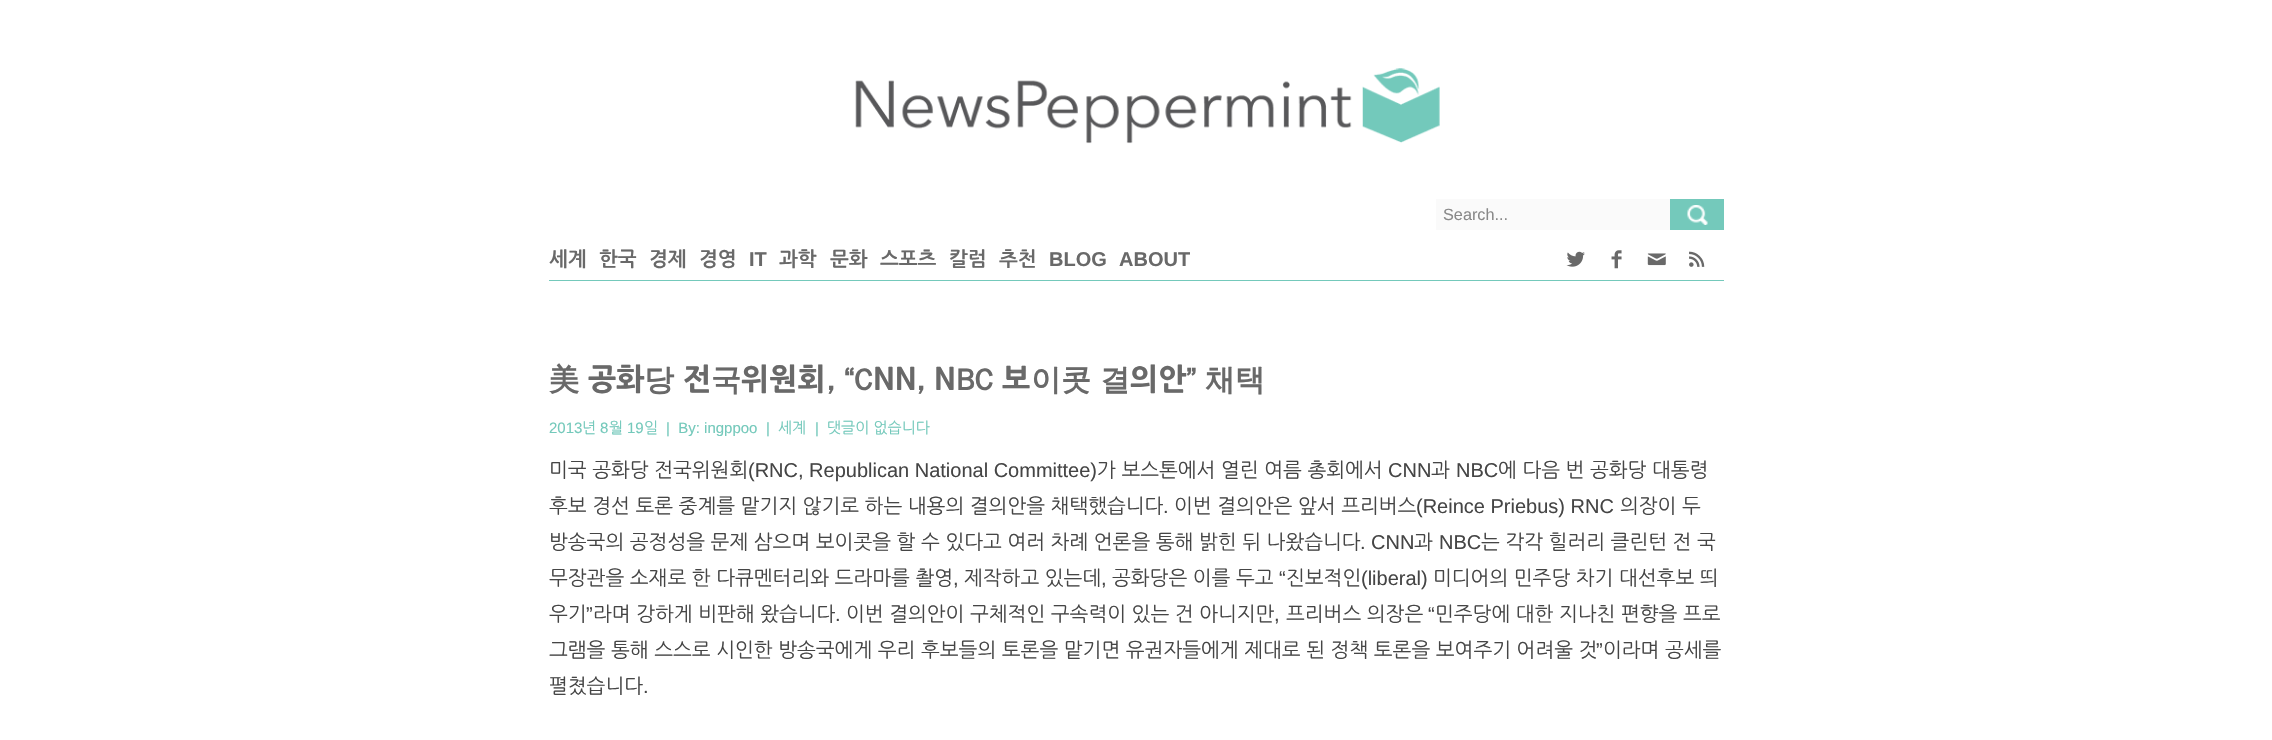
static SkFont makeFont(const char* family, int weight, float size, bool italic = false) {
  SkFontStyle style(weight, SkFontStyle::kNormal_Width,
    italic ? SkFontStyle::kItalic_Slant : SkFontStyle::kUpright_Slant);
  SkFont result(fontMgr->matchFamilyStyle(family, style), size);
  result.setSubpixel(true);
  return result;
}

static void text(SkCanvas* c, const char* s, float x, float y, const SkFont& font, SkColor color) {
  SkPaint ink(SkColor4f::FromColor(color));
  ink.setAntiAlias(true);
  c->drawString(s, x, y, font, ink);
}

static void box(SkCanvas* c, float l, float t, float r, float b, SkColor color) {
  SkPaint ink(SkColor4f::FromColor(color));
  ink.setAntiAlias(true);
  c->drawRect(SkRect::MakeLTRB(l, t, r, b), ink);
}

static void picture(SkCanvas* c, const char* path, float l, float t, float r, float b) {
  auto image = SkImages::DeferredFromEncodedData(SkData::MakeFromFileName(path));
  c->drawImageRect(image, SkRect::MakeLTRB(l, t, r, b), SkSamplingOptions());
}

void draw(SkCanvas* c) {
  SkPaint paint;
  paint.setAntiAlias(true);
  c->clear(0xffffffff);
  picture(c, "img_01.png", 855, 68, 1440, 144);
  box(c, 549, 280, 1724, 281, 0xff74c9bb);
  box(c, 1436, 199, 1670, 230, 0xfffafafa);
  SkFont face1 = makeFont("Liberation Sans", 400, 16.25f);
  text(c, "Search...", 1443, 220, face1, 0xff898989);
  box(c, 1670, 199, 1724, 230, 0xff74c9bb);
  picture(c, "img_02.png", 1687, 205, 1708, 225);
  SkFont face2 = makeFont("NanumGothic", 700, 20);
  text(c, "세계", 549, 266, face2, 0xff696969);
  text(c, "한국", 599, 266, face2, 0xff696969);
  text(c, "경제", 649, 266, face2, 0xff696969);
  text(c, "경영", 699, 266, face2, 0xff696969);
  SkFont face3 = makeFont("Liberation Sans", 700, 20);
  text(c, "IT", 749, 266, face3, 0xff696969);
  text(c, "과학", 779, 266, face2, 0xff696969);
  text(c, "문화", 830, 266, face2, 0xff696969);
  text(c, "스포츠", 880, 266, face2, 0xff696969);
  text(c, "칼럼", 949, 266, face2, 0xff696969);
  text(c, "추천", 999, 266, face2, 0xff696969);
  text(c, "BLOG", 1049, 266, face3, 0xff696969);
  text(c, "ABOUT", 1119, 266, face3, 0xff696969);
  picture(c, "img_03.png", 1566, 251, 1585, 267);
  picture(c, "img_04.png", 1611, 250, 1622, 269);
  picture(c, "img_05.png", 1647, 253, 1666, 266);
  picture(c, "img_06.png", 1689, 251, 1705, 267);
  SkFont face4 = makeFont("WenQuanYi Zen Hei", 700, 30);
  text(c, "美", 549, 390, face4, 0xff696969);
  SkFont face5 = makeFont("NanumGothic", 800, 30);
  text(c, "공화", 588, 390, face5, 0xff696969);
  text(c, "당", 644, 390, face4, 0xff696969);
  text(c, "전", 683, 390, face5, 0xff696969);
  text(c, "국", 711, 390, face4, 0xff696969);
  text(c, "위원회", 741, 390, face5, 0xff696969);
  text(c, ", “C", 826, 390, face4, 0xff696969);
  text(c, "NN", 873, 390, face5, 0xff696969);
  text(c, ",", 916, 390, face4, 0xff696969);
  text(c, "N", 934, 390, face5, 0xff696969);
  text(c, "BC", 956, 390, face4, 0xff696969);
  text(c, "보", 1002, 390, face5, 0xff696969);
  text(c, "이콧 결", 1031, 390, face4, 0xff696969);
  text(c, "의안", 1130, 390, face5, 0xff696969);
  text(c, "” 채택", 1186, 390, face4, 0xff696969);
  SkFont face6 = makeFont("Liberation Sans", 400, 15);
  text(c, "2013", 549, 433, face6, 0xff74c9bb);
  SkFont face7 = makeFont("NanumGothic", 400, 15);
  text(c, "년", 582, 433, face7, 0xff74c9bb);
  text(c, "8", 600, 433, face6, 0xff74c9bb);
  text(c, "월", 609, 433, face7, 0xff74c9bb);
  text(c, "19", 627, 433, face6, 0xff74c9bb);
  text(c, "일", 644, 433, face7, 0xff74c9bb);
  text(c, "|  By: ingppoo", 666, 433, face6, 0xff74c9bb);
  text(c, "|", 766, 433, face6, 0xff74c9bb);
  text(c, "세계", 778, 433, face7, 0xff74c9bb);
  text(c, "|", 815, 433, face6, 0xff74c9bb);
  text(c, "댓글이 없습니다", 827, 433, face7, 0xff74c9bb);
  SkFont face8 = makeFont("NanumGothic", 400, 20);
  text(c, "미국 공화당 전국위원회", 549, 477, face8, 0xff454545);
  SkFont face9 = makeFont("Liberation Sans", 400, 20);
  text(c, "(RNC, Republican National Committee)", 748, 477, face9, 0xff454545);
  text(c, "가 보스톤에서 열린 여름 총회에서", 1097, 477, face8, 0xff454545);
  text(c, "CNN", 1388, 477, face9, 0xff454545);
  text(c, "과", 1431, 477, face8, 0xff454545);
  text(c, "NBC", 1456, 477, face9, 0xff454545);
  text(c, "에 다음 번 공화당 대통령", 1498, 477, face8, 0xff454545);
  text(c, "후보 경선 토론 중계를 맡기지 않기로 하는 내용의 결의안을 채택했습니다", 549, 513, face8, 0xff454545);
  text(c, ".", 1163, 513, face9, 0xff454545);
  text(c, "이번 결의안은 앞서 프리버스", 1174, 513, face8, 0xff454545);
  text(c, "(Reince Priebus) RNC", 1416, 513, face9, 0xff454545);
  text(c, "의장이 두", 1620, 513, face8, 0xff454545);
  text(c, "방송국의 공정성을 문제 삼으며 보이콧을 할 수 있다고 여러 차례 언론을 통해 밝힌 뒤 나왔습니다", 549, 549, face8, 0xff454545);
  text(c, ". CNN", 1360, 549, face9, 0xff454545);
  text(c, "과", 1414, 549, face8, 0xff454545);
  text(c, "NBC", 1439, 549, face9, 0xff454545);
  text(c, "는 각각 힐러리 클린턴 전 국", 1481, 549, face8, 0xff454545);
  text(c, "무장관을 소재로 한 다큐멘터리와 드라마를 촬영", 549, 585, face8, 0xff454545);
  text(c, "제작하고 있는데", 964, 585, face8, 0xff454545);
  text(c, "공화당은 이를 두고", 1112, 585, face8, 0xff454545);
  text(c, "“", 1279, 585, face9, 0xff454545);
  text(c, "진보적인", 1286, 585, face8, 0xff454545);
  text(c, "(liberal)", 1361, 585, face9, 0xff454545);
  text(c, "미디어의 민주당 차기 대선후보 띄", 1433, 585, face8, 0xff454545);
  text(c, ",", 953, 585, face9, 0xff454545);
  text(c, ",", 1101, 585, face9, 0xff454545);
  text(c, "우기", 549, 621, face8, 0xff454545);
  text(c, "”", 586, 621, face9, 0xff454545);
  text(c, "라며 강하게 비판해 왔습니다", 593, 621, face8, 0xff454545);
  text(c, "이번 결의안이 구체적인 구속력이 있는 건 아니지만", 846, 621, face8, 0xff454545);
  text(c, "프리버스 의장은", 1286, 621, face8, 0xff454545);
  text(c, "“", 1428, 621, face9, 0xff454545);
  text(c, "민주당에 대한 지나친 편향을 프로", 1435, 621, face8, 0xff454545);
  text(c, ".", 835, 621, face9, 0xff454545);
  text(c, ",", 1274, 621, face9, 0xff454545);
  text(c, "그램을 통해 스스로 시인한 방송국에게 우리 후보들의 토론을 맡기면 유권자들에게 제대로 된 정책 토론을 보여주기 어려울 것", 549, 657, face8, 0xff454545);
  text(c, "”", 1596, 657, face9, 0xff454545);
  text(c, "이라며 공세를", 1603, 657, face8, 0xff454545);
  text(c, "펼쳤습니다", 549, 693, face8, 0xff454545);
  text(c, ".", 643, 693, face9, 0xff454545);
}
